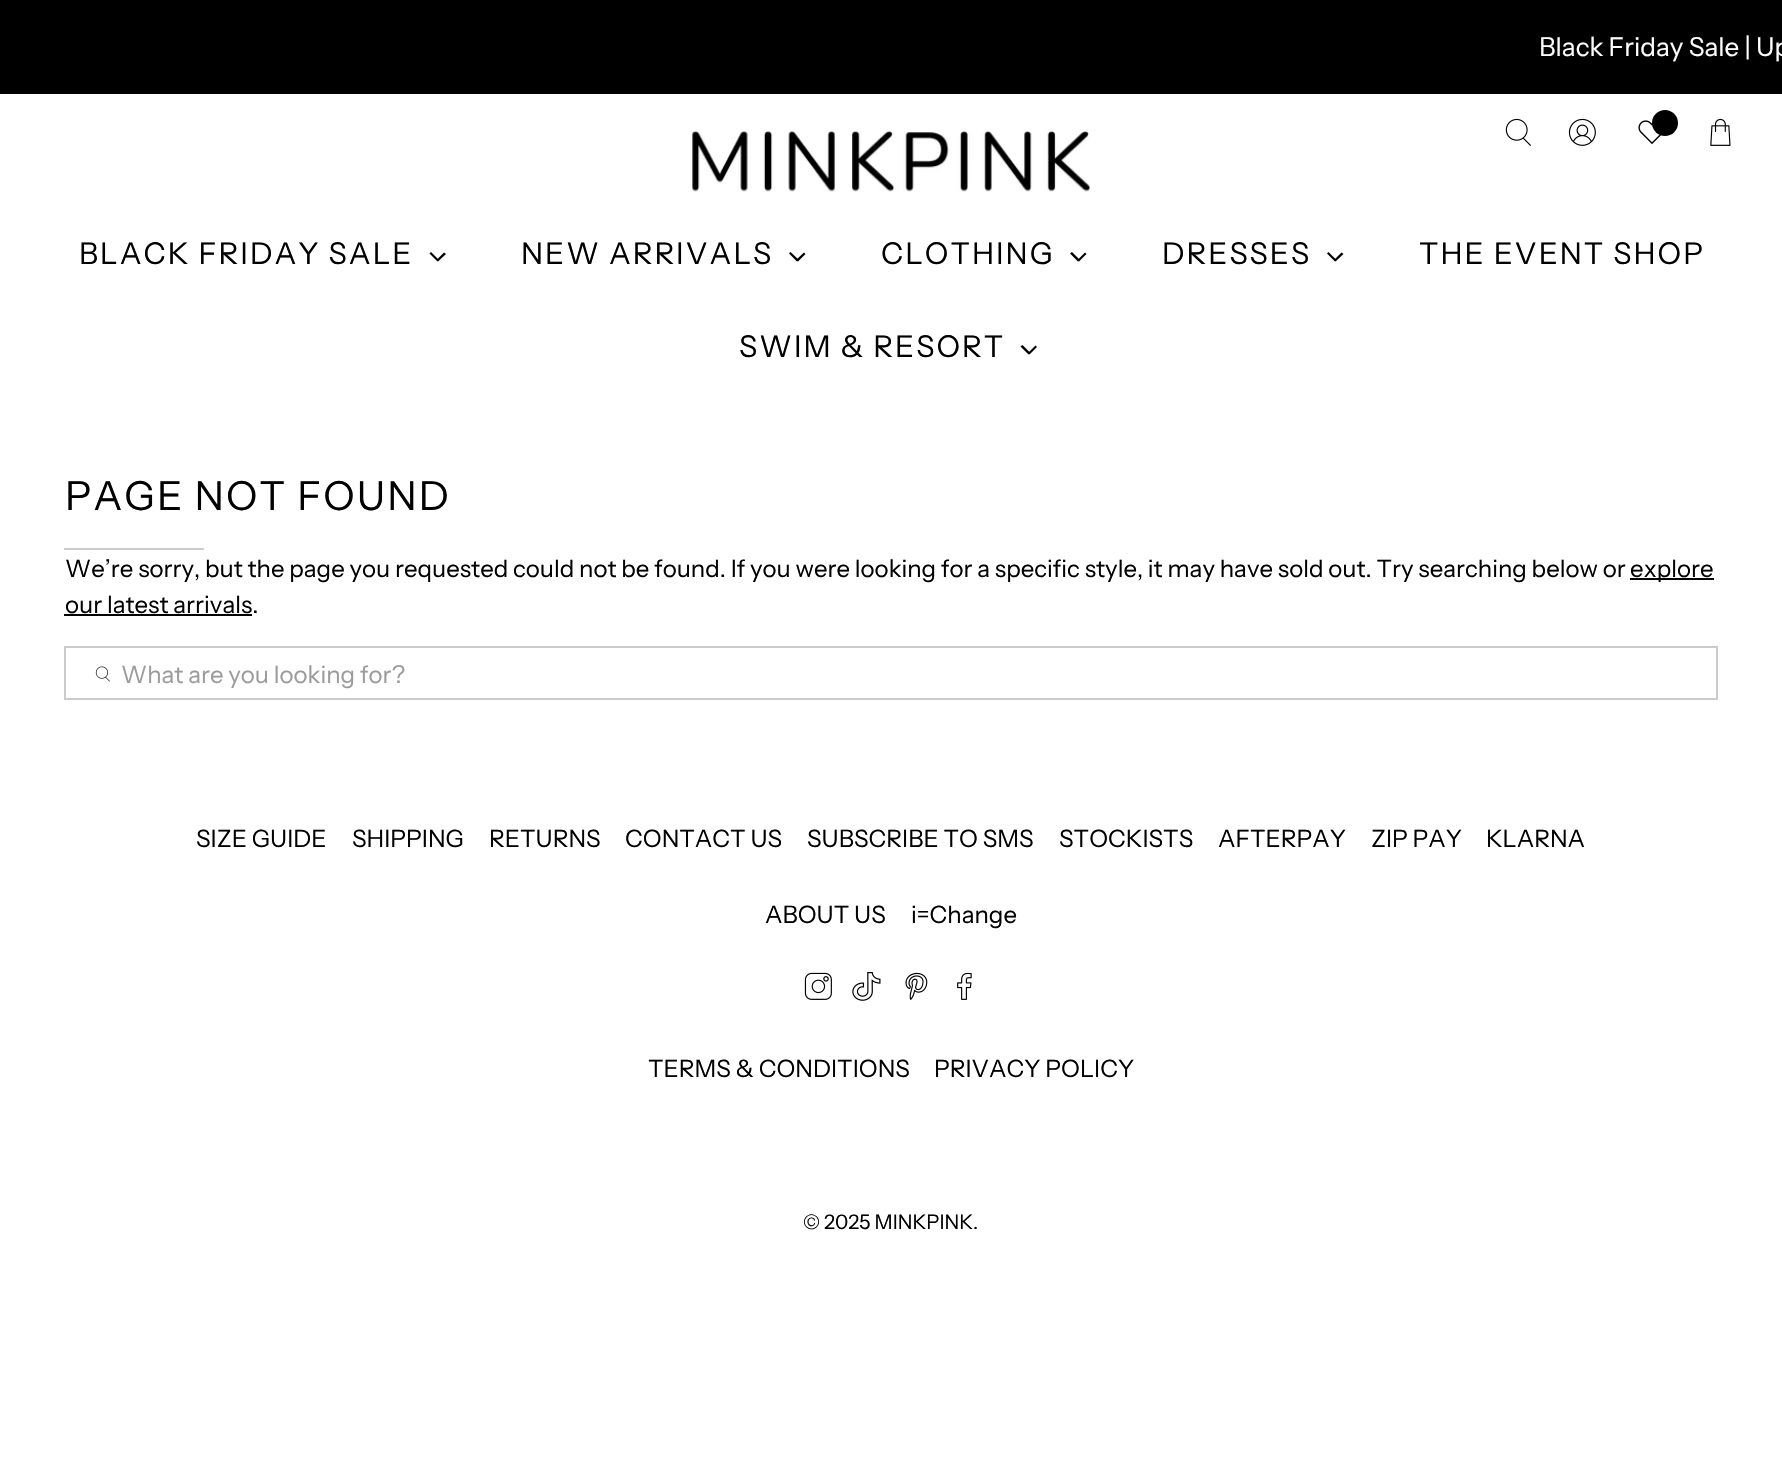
static SkFont makeFont(const char* family, int weight, float size, bool italic = false) {
  SkFontStyle style(weight, SkFontStyle::kNormal_Width,
    italic ? SkFontStyle::kItalic_Slant : SkFontStyle::kUpright_Slant);
  SkFont result(fontMgr->matchFamilyStyle(family, style), size);
  result.setSubpixel(true);
  return result;
}

static void text(SkCanvas* c, const char* s, float x, float y, const SkFont& font, SkColor color) {
  SkPaint ink(SkColor4f::FromColor(color));
  ink.setAntiAlias(true);
  c->drawString(s, x, y, font, ink);
}

static void spacedText(SkCanvas* c, const char* s, float x, float y, const SkFont& font, const SkPaint& ink, float letter, float word) {
  std::vector<SkGlyphID> glyphs(font.countText(s, strlen(s), SkTextEncoding::kUTF8));
  std::vector<float> xs(glyphs.size());
  font.textToGlyphs(s, strlen(s), SkTextEncoding::kUTF8, glyphs);
  font.getXPos(glyphs, xs, x);
  float extra = 0;
  for (size_t i = 0; i < glyphs.size(); i++) {
    xs[i] += extra;
    extra += letter + word * (glyphs[i] == font.unicharToGlyph(' '));
  }
  c->drawTextBlob(SkTextBlob::MakeFromPosHGlyphs(glyphs, xs, y, font), 0, 0, ink);
}

static void box(SkCanvas* c, float l, float t, float r, float b, SkColor color) {
  SkPaint ink(SkColor4f::FromColor(color));
  ink.setAntiAlias(true);
  c->drawRect(SkRect::MakeLTRB(l, t, r, b), ink);
}

static void picture(SkCanvas* c, const char* path, float l, float t, float r, float b) {
  auto image = SkImages::DeferredFromEncodedData(SkData::MakeFromFileName(path));
  c->drawImageRect(image, SkRect::MakeLTRB(l, t, r, b), SkSamplingOptions());
}

void draw(SkCanvas* c) {
  SkPaint paint;
  paint.setAntiAlias(true);
  c->clear(0xffffffff);
  box(c, 0, 0, 1782, 94, 0xff000000);
  SkFont face1 = makeFont("Instrument Sans", 400, 26);
  text(c, "Black Friday Sale | Up", 1539, 56, face1, 0xffffffff);
  picture(c, "img_01.png", 1505, 118, 1531, 146);
  picture(c, "img_02.png", 1568, 118, 1596, 146);
  picture(c, "img_03.png", 1638, 120, 1662, 145);
  paint.setColor(0xff000000);
  c->drawCircle(1665, 123, 13, paint);
  picture(c, "img_04.png", 1710, 118, 1731, 146);
  picture(c, "img_05.png", 690, 130, 1090, 192);
  SkFont face2 = makeFont("Instrument Sans", 400, 30);
  spacedText(c, "BLACK FRIDAY SALE", 79, 264, face2, paint, 2, 0);
  c->drawPath(SkPathBuilder().moveTo(444, 252.5f).lineTo(446, 254).lineTo(438, 261.5f).lineTo(436.5f, 260).close().detach(), paint);
  c->drawPath(SkPathBuilder().moveTo(431, 252).lineTo(439, 260).lineTo(437.5f, 261.5f).lineTo(429.5f, 253.5f).close().detach(), paint);
  spacedText(c, "NEW ARRIVALS", 521, 264, face2, paint, 2, 0);
  c->drawPath(SkPathBuilder().moveTo(804, 252.5f).lineTo(805.5f, 254).lineTo(798, 261.5f).lineTo(796, 260).close().detach(), paint);
  c->drawPath(SkPathBuilder().moveTo(790.5f, 252).lineTo(799, 260).lineTo(797, 261.5f).lineTo(789, 253.5f).close().detach(), paint);
  spacedText(c, "CLOTHING", 881, 264, face2, paint, 2, 0);
  c->drawPath(SkPathBuilder().moveTo(1085, 252.5f).lineTo(1086.5f, 254).lineTo(1079, 261.5f).lineTo(1077.5f, 260).close().detach(), paint);
  c->drawPath(SkPathBuilder().moveTo(1072, 252).lineTo(1080, 260).lineTo(1078, 261.5f).lineTo(1070, 253.5f).close().detach(), paint);
  spacedText(c, "DRESSES", 1162, 264, face2, paint, 2, 0);
  c->drawPath(SkPathBuilder().moveTo(1341.5f, 252.5f).lineTo(1343.5f, 254).lineTo(1335.5f, 261.5f).lineTo(1334, 260).close().detach(), paint);
  c->drawPath(SkPathBuilder().moveTo(1328.5f, 252).lineTo(1336.5f, 260).lineTo(1335, 261.5f).lineTo(1327, 253.5f).close().detach(), paint);
  spacedText(c, "THE EVENT SHOP", 1419, 264, face2, paint, 2, 0);
  spacedText(c, "SWIM & RESORT", 739, 357, face2, paint, 2, 0);
  c->drawPath(SkPathBuilder().moveTo(1035.5f, 345.5f).lineTo(1037, 347).lineTo(1029.5f, 354.5f).lineTo(1028, 353).close().detach(), paint);
  c->drawPath(SkPathBuilder().moveTo(1022.5f, 345).lineTo(1030.5f, 353).lineTo(1028.5f, 354.5f).lineTo(1020.5f, 346.5f).close().detach(), paint);
  SkFont face3 = makeFont("Instrument Sans", 400, 40);
  spacedText(c, "PAGE NOT FOUND", 65, 510, face3, paint, 2, 0);
  box(c, 64, 548, 204, 550, 0xffcccccc);
  SkFont face4 = makeFont("Instrument Sans", 400, 24);
  text(c, "We’re sorry, but the page you requested could not be found. If you were looking for a specific style, it may have sold out. Try searching below or", 65, 577, face4, 0xff000000);
  box(c, 1630, 578, 1714, 580, 0xff000000);
  text(c, "explore", 1630, 577, face4, 0xff000000);
  text(c, "our latest arrivals.", 65, 613, face4, 0xff000000);
  box(c, 64, 614, 252, 616, 0xff000000);
  paint.setStyle(SkPaint::kStroke_Style);
  paint.setStrokeWidth(2);
  paint.setColor(0xffcccccc);
  c->drawRect(SkRect::MakeLTRB(65, 647, 1717, 699), paint);
  picture(c, "img_06.png", 95, 666, 110, 682);
  text(c, "What are you looking for?", 121, 683, face4, 0xff9b9b9b);
  text(c, "SIZE GUIDE", 196, 847, face4, 0xff000000);
  text(c, "SHIPPING", 352, 847, face4, 0xff000000);
  text(c, "RETURNS", 489, 847, face4, 0xff000000);
  text(c, "CONTACT US", 625, 847, face4, 0xff000000);
  text(c, "SUBSCRIBE TO SMS", 807, 847, face4, 0xff000000);
  text(c, "STOCKISTS", 1059, 847, face4, 0xff000000);
  text(c, "AFTERPAY", 1218, 847, face4, 0xff000000);
  text(c, "ZIP PAY", 1371, 847, face4, 0xff000000);
  text(c, "KLARNA", 1486, 847, face4, 0xff000000);
  text(c, "ABOUT US", 765, 923, face4, 0xff000000);
  text(c, "i=Change", 911, 923, face4, 0xff000000);
  picture(c, "img_07.png", 804, 972, 832, 1000);
  picture(c, "img_08.png", 852, 972, 881, 1001);
  picture(c, "img_09.png", 905, 972, 928, 1000);
  picture(c, "img_10.png", 957, 972, 972, 1000);
  text(c, "TERMS & CONDITIONS", 648, 1077, face4, 0xff000000);
  text(c, "PRIVACY POLICY", 934, 1077, face4, 0xff000000);
  SkFont face5 = makeFont("Instrument Sans", 400, 20);
  text(c, "© 2025 MINKPINK.", 803, 1229, face5, 0xff000000);
}
